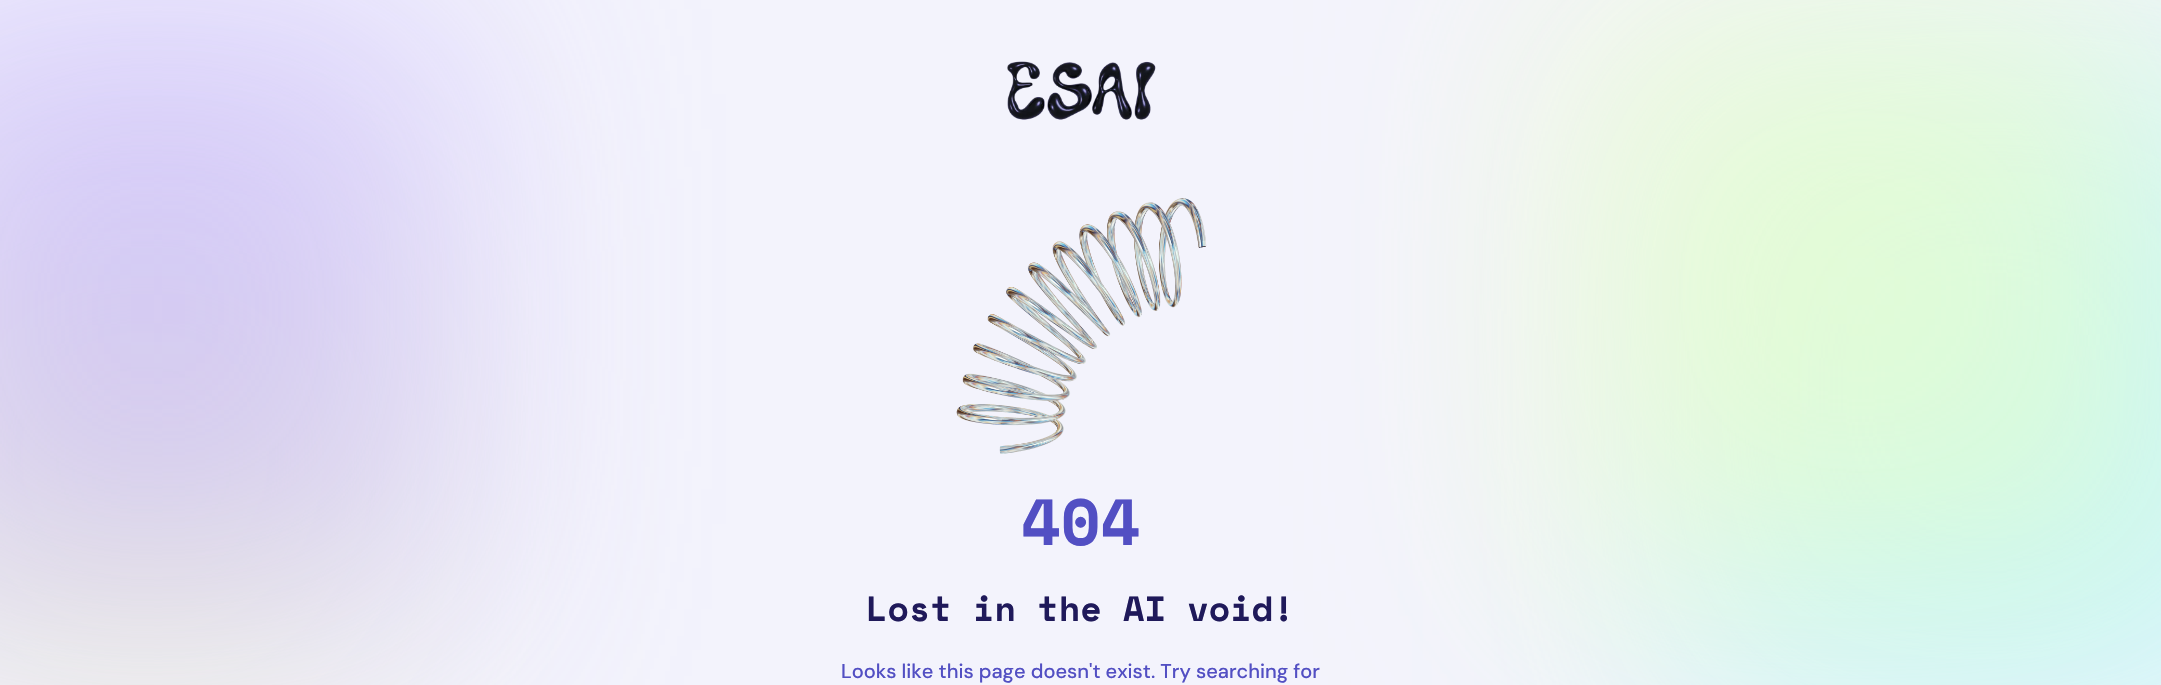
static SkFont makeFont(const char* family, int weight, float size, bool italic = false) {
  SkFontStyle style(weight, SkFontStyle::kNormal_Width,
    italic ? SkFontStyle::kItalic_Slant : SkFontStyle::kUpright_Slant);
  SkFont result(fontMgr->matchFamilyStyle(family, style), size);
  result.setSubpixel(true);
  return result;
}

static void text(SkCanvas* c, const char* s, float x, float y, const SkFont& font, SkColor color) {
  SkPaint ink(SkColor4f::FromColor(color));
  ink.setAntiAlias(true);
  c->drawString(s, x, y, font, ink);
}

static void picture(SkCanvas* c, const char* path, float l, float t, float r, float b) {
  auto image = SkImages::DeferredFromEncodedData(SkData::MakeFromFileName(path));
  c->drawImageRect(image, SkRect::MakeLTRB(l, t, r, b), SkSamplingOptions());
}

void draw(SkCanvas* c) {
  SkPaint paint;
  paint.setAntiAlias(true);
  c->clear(0xfff3f3fc);
  paint.setColor(0x99f6ffbe);
  paint.setMaskFilter(SkMaskFilter::MakeBlur(kNormal_SkBlurStyle, 162.5f));
  c->drawRect(SkRect::MakeLTRB(-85, 225, 375, 685), paint);
  paint.setMaskFilter(nullptr);
  paint.setColor(0x9996f6ff);
  paint.setMaskFilter(SkMaskFilter::MakeBlur(kNormal_SkBlurStyle, 162.5f));
  c->drawRect(SkRect::MakeLTRB(1680, 81, 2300, 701), paint);
  paint.setMaskFilter(nullptr);
  paint.setColor(0x99f6ffbe);
  paint.setMaskFilter(SkMaskFilter::MakeBlur(kNormal_SkBlurStyle, 162.5f));
  c->drawRect(SkRect::MakeLTRB(1561, -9, 2161, 591), paint);
  paint.setMaskFilter(nullptr);
  paint.setColor(0x99bfaefe);
  paint.setMaskFilter(SkMaskFilter::MakeBlur(kNormal_SkBlurStyle, 162.5f));
  c->drawRect(SkRect::MakeLTRB(-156, 9, 444, 609), paint);
  paint.setMaskFilter(nullptr);
  picture(c, "img_01.png", 1007, 61, 1156, 120);
  picture(c, "img_02.png", 956, 198, 1207, 454);
  SkFont face1 = makeFont("Space Mono", 700, 65);
  text(c, "404", 1021, 545, face1, 0xff524fc3);
  SkFont face2 = makeFont("Space Mono", 700, 35);
  text(c, "Lost in the AI void!", 866, 621, face2, 0xff1f195a);
  SkFont face3 = makeFont("DM Sans", 500, 20);
  text(c, "Looks like this page doesn't exist. Try searching for", 841, 678, face3, 0xff524fc3);
}
